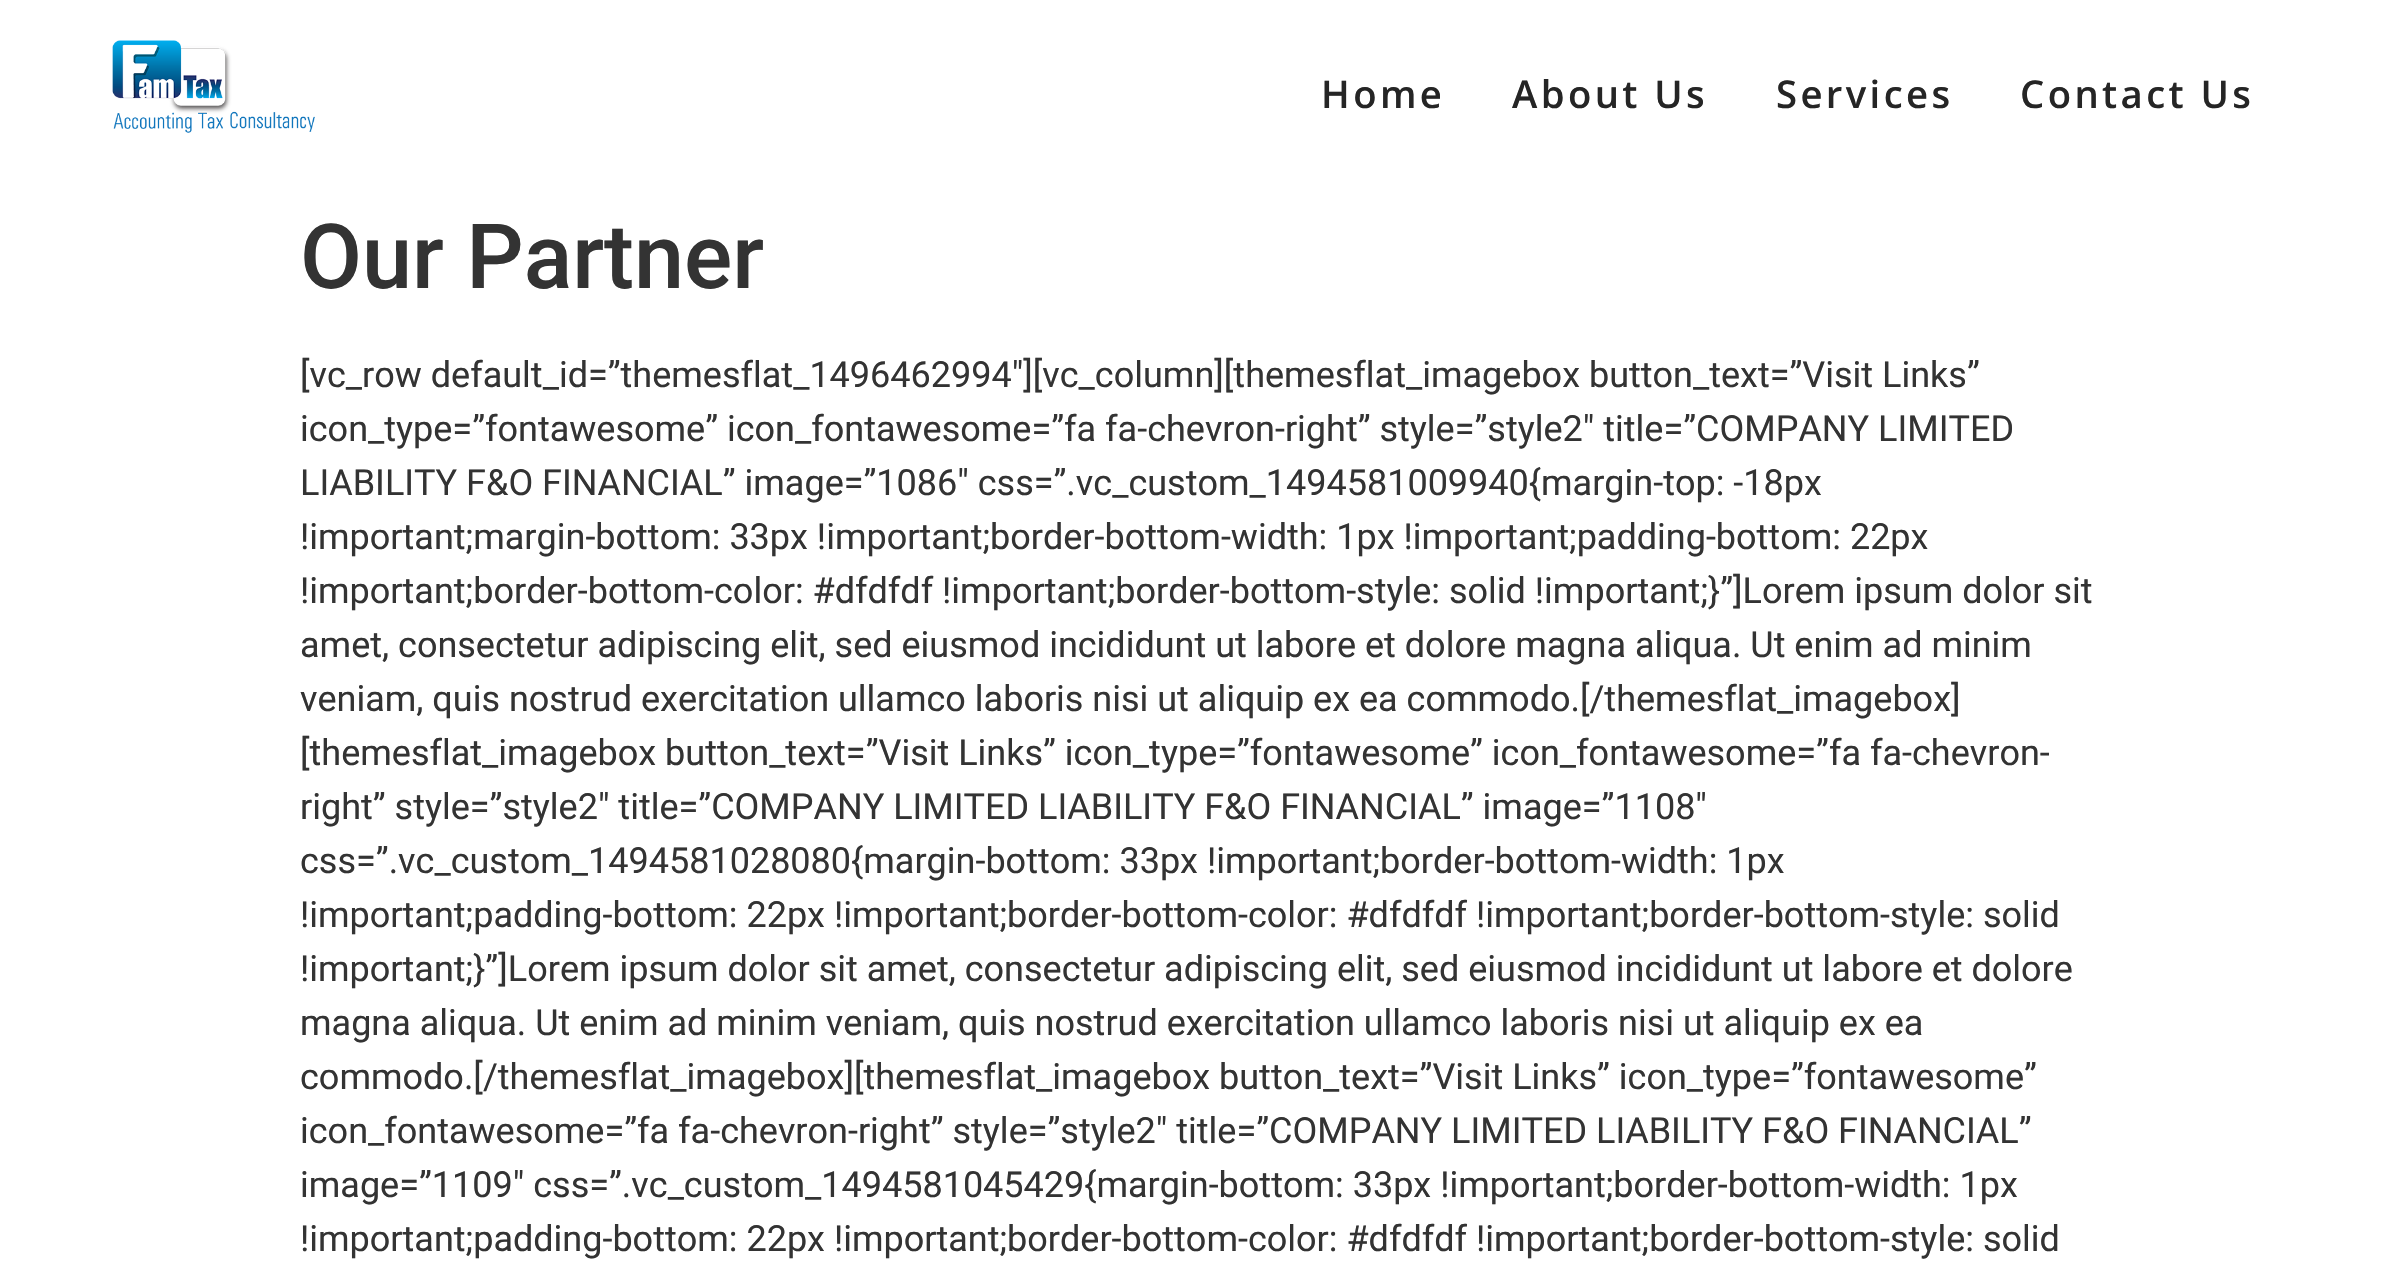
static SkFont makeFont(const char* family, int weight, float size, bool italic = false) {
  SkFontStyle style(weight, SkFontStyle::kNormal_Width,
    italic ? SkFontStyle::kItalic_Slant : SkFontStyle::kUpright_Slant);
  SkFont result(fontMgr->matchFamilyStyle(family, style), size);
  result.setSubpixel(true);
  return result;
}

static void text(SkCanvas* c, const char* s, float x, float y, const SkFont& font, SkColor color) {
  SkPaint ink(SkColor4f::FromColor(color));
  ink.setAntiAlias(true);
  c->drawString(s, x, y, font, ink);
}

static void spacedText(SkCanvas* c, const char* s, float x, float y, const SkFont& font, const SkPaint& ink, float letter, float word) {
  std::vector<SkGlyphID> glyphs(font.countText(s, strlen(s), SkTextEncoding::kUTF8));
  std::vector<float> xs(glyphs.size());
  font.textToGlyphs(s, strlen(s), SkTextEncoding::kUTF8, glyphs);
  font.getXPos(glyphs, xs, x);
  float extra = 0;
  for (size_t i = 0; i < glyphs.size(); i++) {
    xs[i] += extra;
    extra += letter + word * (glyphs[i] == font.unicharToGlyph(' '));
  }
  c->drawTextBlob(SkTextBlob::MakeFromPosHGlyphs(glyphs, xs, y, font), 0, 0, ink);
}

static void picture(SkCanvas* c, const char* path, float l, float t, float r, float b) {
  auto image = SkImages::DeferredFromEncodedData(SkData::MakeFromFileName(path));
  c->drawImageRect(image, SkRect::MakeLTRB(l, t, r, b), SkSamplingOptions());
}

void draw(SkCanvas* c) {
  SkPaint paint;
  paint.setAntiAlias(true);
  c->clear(0xffffffff);
  picture(c, "img_01.png", 112, 40, 315, 133);
  SkFont face1 = makeFont("Open Sans", 600, 38.25f);
  paint.setColor(0xff252525);
  spacedText(c, "Home", 1321, 108, face1, paint, 3.4f, 0);
  spacedText(c, "About Us", 1512, 108, face1, paint, 3.4f, 0);
  spacedText(c, "Services", 1776, 108, face1, paint, 3.4f, 0);
  spacedText(c, "Contact Us", 2020, 108, face1, paint, 3.4f, 0);
  SkFont face2 = makeFont("Roboto", 500, 90);
  text(c, "Our Partner", 300, 288, face2, 0xff333333);
  SkFont face3 = makeFont("Roboto", 400, 36);
  text(c, "[vc_row default_id=”themesflat_1496462994″][vc_column][themesflat_imagebox button_text=”Visit Links”", 300, 387, face3, 0xff333333);
  text(c, "icon_type=”fontawesome” icon_fontawesome=”fa fa-chevron-right” style=”style2″ title=”COMPANY LIMITED", 300, 441, face3, 0xff333333);
  text(c, "LIABILITY F&O FINANCIAL” image=”1086″ css=”.vc_custom_1494581009940{margin-top: -18px", 300, 495, face3, 0xff333333);
  text(c, "!important;margin-bottom: 33px !important;border-bottom-width: 1px !important;padding-bottom: 22px", 300, 549, face3, 0xff333333);
  text(c, "!important;border-bottom-color: #dfdfdf !important;border-bottom-style: solid !important;}”]Lorem ipsum dolor sit", 300, 603, face3, 0xff333333);
  text(c, "amet, consectetur adipiscing elit, sed eiusmod incididunt ut labore et dolore magna aliqua. Ut enim ad minim", 300, 657, face3, 0xff333333);
  text(c, "veniam, quis nostrud exercitation ullamco laboris nisi ut aliquip ex ea commodo.[/themesflat_imagebox]", 300, 711, face3, 0xff333333);
  text(c, "[themesflat_imagebox button_text=”Visit Links” icon_type=”fontawesome” icon_fontawesome=”fa fa-chevron-", 300, 765, face3, 0xff333333);
  text(c, "right” style=”style2″ title=”COMPANY LIMITED LIABILITY F&O FINANCIAL” image=”1108″", 300, 819, face3, 0xff333333);
  text(c, "css=”.vc_custom_1494581028080{margin-bottom: 33px !important;border-bottom-width: 1px", 300, 873, face3, 0xff333333);
  text(c, "!important;padding-bottom: 22px !important;border-bottom-color: #dfdfdf !important;border-bottom-style: solid", 300, 927, face3, 0xff333333);
  text(c, "!important;}”]Lorem ipsum dolor sit amet, consectetur adipiscing elit, sed eiusmod incididunt ut labore et dolore", 300, 981, face3, 0xff333333);
  text(c, "magna aliqua. Ut enim ad minim veniam, quis nostrud exercitation ullamco laboris nisi ut aliquip ex ea", 300, 1035, face3, 0xff333333);
  text(c, "commodo.[/themesflat_imagebox][themesflat_imagebox button_text=”Visit Links” icon_type=”fontawesome”", 300, 1089, face3, 0xff333333);
  text(c, "icon_fontawesome=”fa fa-chevron-right” style=”style2″ title=”COMPANY LIMITED LIABILITY F&O FINANCIAL”", 300, 1143, face3, 0xff333333);
  text(c, "image=”1109″ css=”.vc_custom_1494581045429{margin-bottom: 33px !important;border-bottom-width: 1px", 300, 1197, face3, 0xff333333);
  text(c, "!important;padding-bottom: 22px !important;border-bottom-color: #dfdfdf !important;border-bottom-style: solid", 300, 1251, face3, 0xff333333);
}
